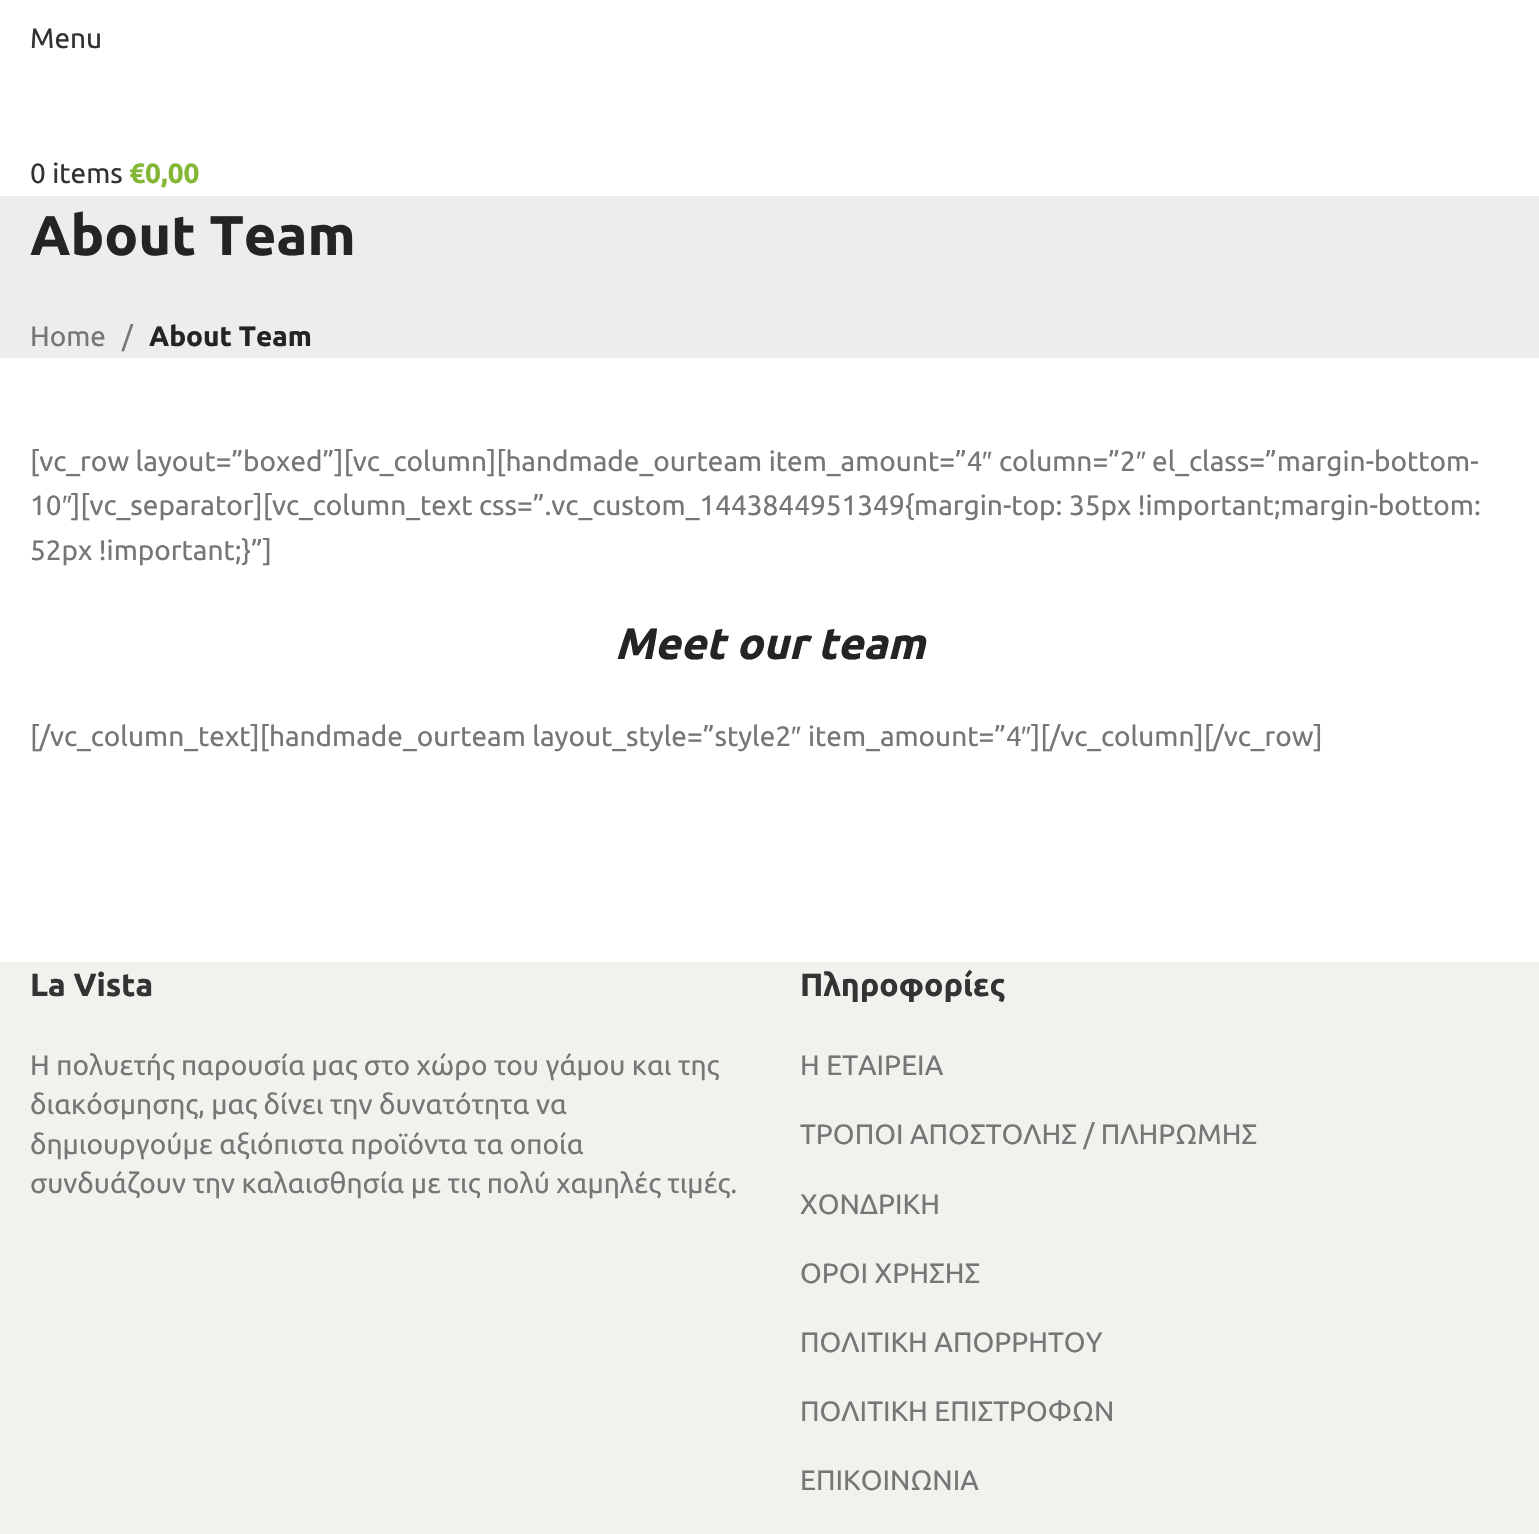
static SkFont makeFont(const char* family, int weight, float size, bool italic = false) {
  SkFontStyle style(weight, SkFontStyle::kNormal_Width,
    italic ? SkFontStyle::kItalic_Slant : SkFontStyle::kUpright_Slant);
  SkFont result(fontMgr->matchFamilyStyle(family, style), size);
  result.setSubpixel(true);
  return result;
}

static void text(SkCanvas* c, const char* s, float x, float y, const SkFont& font, SkColor color) {
  SkPaint ink(SkColor4f::FromColor(color));
  ink.setAntiAlias(true);
  c->drawString(s, x, y, font, ink);
}

static void box(SkCanvas* c, float l, float t, float r, float b, SkColor color) {
  SkPaint ink(SkColor4f::FromColor(color));
  ink.setAntiAlias(true);
  c->drawRect(SkRect::MakeLTRB(l, t, r, b), ink);
}

void draw(SkCanvas* c) {
  SkPaint paint;
  paint.setAntiAlias(true);
  c->clear(0xffffffff);
  SkFont face1 = makeFont("Ubuntu", 400, 28);
  text(c, "Menu", 30, 48, face1, 0xff333333);
  text(c, "0 items", 30, 183, face1, 0xff333333);
  SkFont face2 = makeFont("Ubuntu", 700, 28);
  text(c, "€0,00", 129, 183, face2, 0xff83b735);
  box(c, 0, 196, 1539, 358, 0xffededed);
  SkFont face3 = makeFont("Ubuntu", 700, 56);
  text(c, "About Team", 30, 255, face3, 0xff242424);
  text(c, "Home", 30, 346, face1, 0xff767676);
  text(c, "/", 122, 346, face1, 0xff767676);
  text(c, "About Team", 149, 346, face2, 0xff242424);
  text(c, "[vc_row layout=”boxed”][vc_column][handmade_ourteam item_amount=”4", 30, 471, face1, 0xff767676);
  SkFont face4 = makeFont("Liberation Sans", 400, 28);
  text(c, "″", 982, 471, face4, 0xff767676);
  text(c, "column=”2", 999, 471, face1, 0xff767676);
  text(c, "″", 1136, 471, face4, 0xff767676);
  text(c, "el_class=”margin-bottom-", 1152, 471, face1, 0xff767676);
  text(c, "10", 30, 515, face1, 0xff767676);
  text(c, "″", 62, 515, face4, 0xff767676);
  text(c, "][vc_separator][vc_column_text css=”.vc_custom_1443844951349{margin-top: 35px !important;margin-bottom:", 71, 515, face1, 0xff767676);
  text(c, "52px !important;}”]", 30, 560, face1, 0xff767676);
  SkFont face5 = makeFont("Ubuntu", 700, 44, true);
  text(c, "Meet our team", 615, 659, face5, 0xff242424);
  text(c, "[/vc_column_text][handmade_ourteam layout_style=”style2", 30, 746, face1, 0xff767676);
  text(c, "″", 791, 746, face4, 0xff767676);
  text(c, "item_amount=”4", 808, 746, face1, 0xff767676);
  text(c, "″", 1021, 746, face4, 0xff767676);
  text(c, "][/vc_column][/vc_row]", 1031, 746, face1, 0xff767676);
  box(c, 0, 962, 1539, 1534, 0xfff1f2ed);
  SkFont face6 = makeFont("Ubuntu", 700, 32);
  text(c, "La Vista", 30, 996, face6, 0xff333333);
  text(c, "Η πολυετής παρουσία μας στο χώρο του γάμου και της", 30, 1075, face1, 0xff767676);
  text(c, "διακόσμησης, μας δίνει την δυνατότητα να", 30, 1114, face1, 0xff767676);
  text(c, "δημιουργούμε αξιόπιστα προϊόντα τα οποία", 30, 1154, face1, 0xff767676);
  text(c, "συνδυάζουν την καλαισθησία με τις πολύ χαμηλές τιμές.", 30, 1193, face1, 0xff767676);
  text(c, "Πληροφορίες", 800, 996, face6, 0xff333333);
  text(c, "Η ΕΤΑΙΡΕΙΑ", 800, 1075, face1, 0xff767676);
  text(c, "ΤΡΟΠΟΙ ΑΠΟΣΤΟΛΗΣ / ΠΛΗΡΩΜΗΣ", 800, 1144, face1, 0xff767676);
  text(c, "ΧΟΝΔΡΙΚΗ", 800, 1214, face1, 0xff767676);
  text(c, "ΟΡΟΙ ΧΡΗΣΗΣ", 800, 1283, face1, 0xff767676);
  text(c, "ΠΟΛΙΤΙΚΗ ΑΠΟΡΡΗΤΟΥ", 800, 1352, face1, 0xff767676);
  text(c, "ΠΟΛΙΤΙΚΗ ΕΠΙΣΤΡΟΦΩΝ", 800, 1421, face1, 0xff767676);
  text(c, "ΕΠΙΚΟΙΝΩΝΙΑ", 800, 1490, face1, 0xff767676);
}
